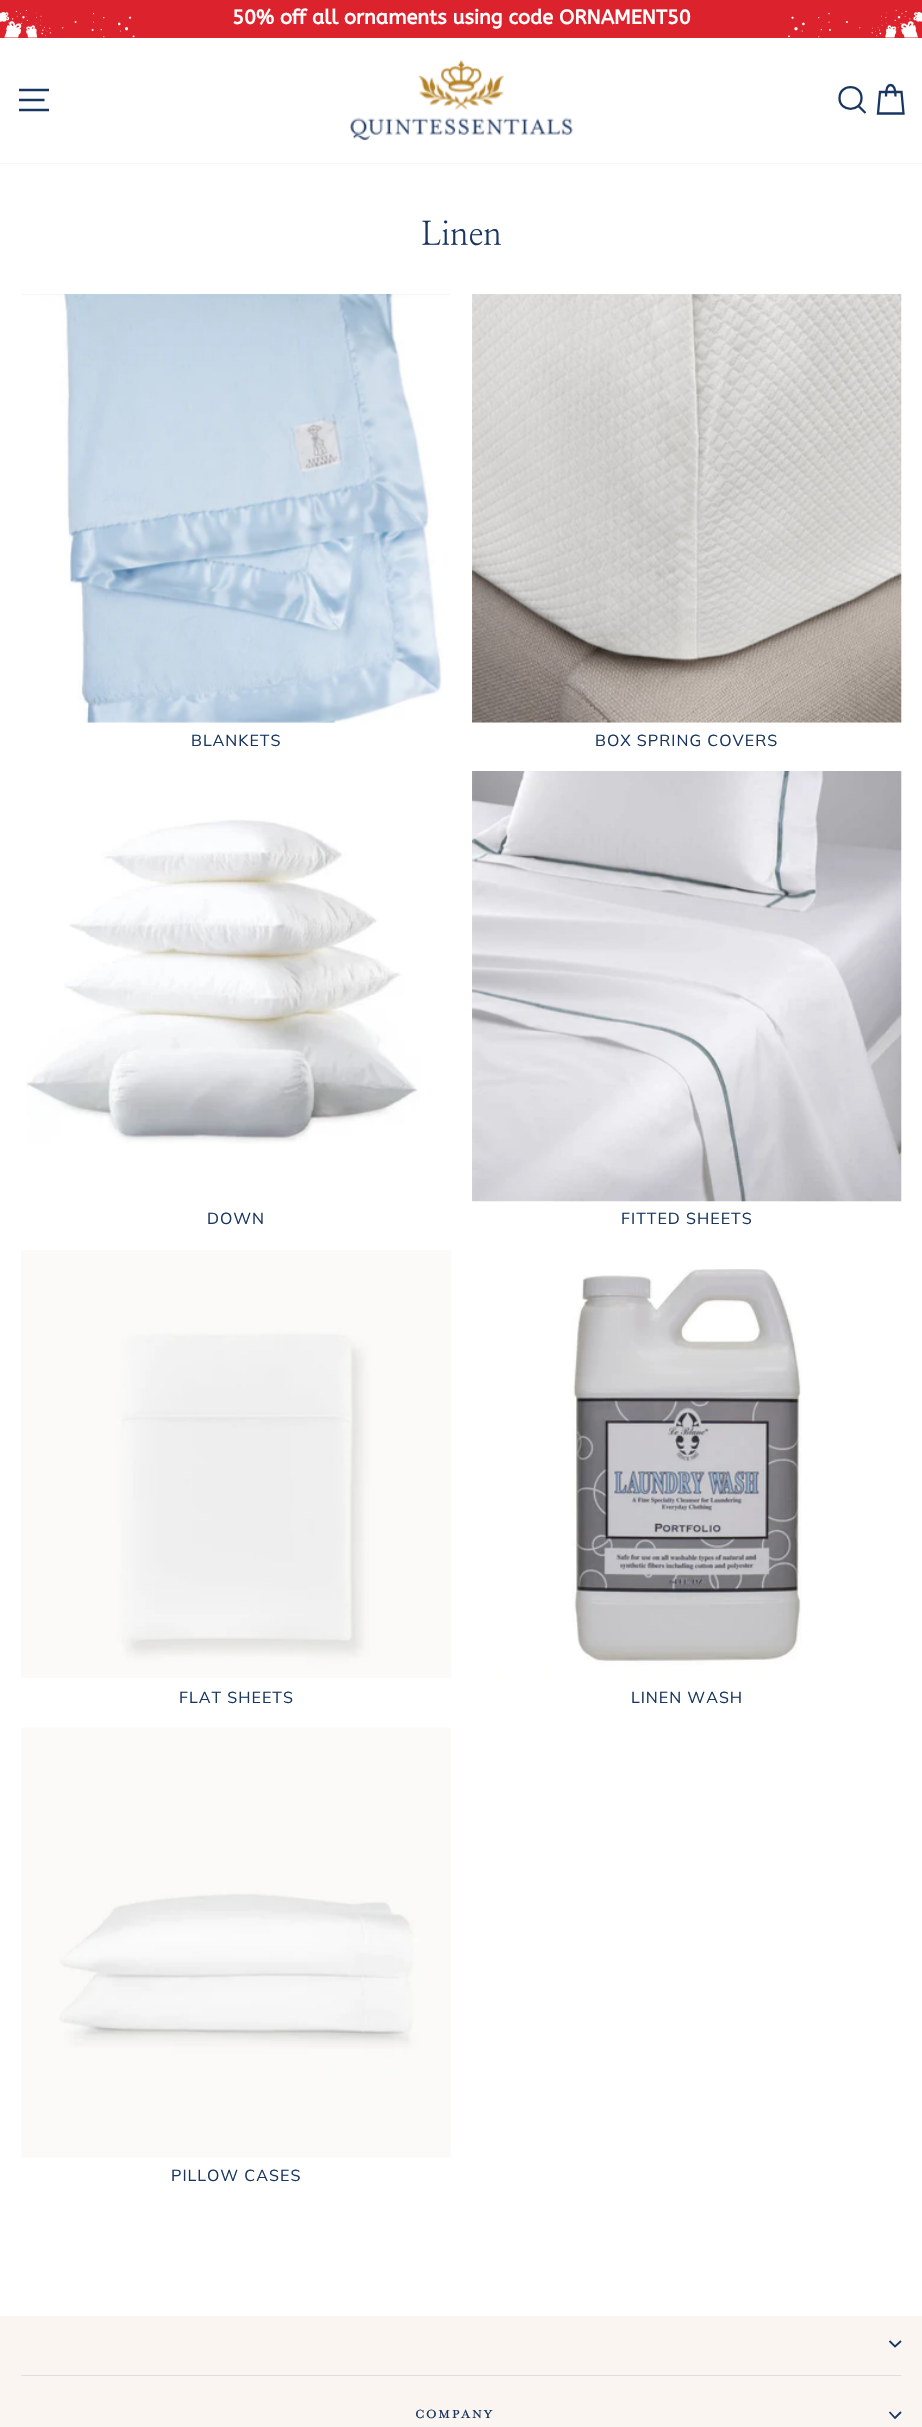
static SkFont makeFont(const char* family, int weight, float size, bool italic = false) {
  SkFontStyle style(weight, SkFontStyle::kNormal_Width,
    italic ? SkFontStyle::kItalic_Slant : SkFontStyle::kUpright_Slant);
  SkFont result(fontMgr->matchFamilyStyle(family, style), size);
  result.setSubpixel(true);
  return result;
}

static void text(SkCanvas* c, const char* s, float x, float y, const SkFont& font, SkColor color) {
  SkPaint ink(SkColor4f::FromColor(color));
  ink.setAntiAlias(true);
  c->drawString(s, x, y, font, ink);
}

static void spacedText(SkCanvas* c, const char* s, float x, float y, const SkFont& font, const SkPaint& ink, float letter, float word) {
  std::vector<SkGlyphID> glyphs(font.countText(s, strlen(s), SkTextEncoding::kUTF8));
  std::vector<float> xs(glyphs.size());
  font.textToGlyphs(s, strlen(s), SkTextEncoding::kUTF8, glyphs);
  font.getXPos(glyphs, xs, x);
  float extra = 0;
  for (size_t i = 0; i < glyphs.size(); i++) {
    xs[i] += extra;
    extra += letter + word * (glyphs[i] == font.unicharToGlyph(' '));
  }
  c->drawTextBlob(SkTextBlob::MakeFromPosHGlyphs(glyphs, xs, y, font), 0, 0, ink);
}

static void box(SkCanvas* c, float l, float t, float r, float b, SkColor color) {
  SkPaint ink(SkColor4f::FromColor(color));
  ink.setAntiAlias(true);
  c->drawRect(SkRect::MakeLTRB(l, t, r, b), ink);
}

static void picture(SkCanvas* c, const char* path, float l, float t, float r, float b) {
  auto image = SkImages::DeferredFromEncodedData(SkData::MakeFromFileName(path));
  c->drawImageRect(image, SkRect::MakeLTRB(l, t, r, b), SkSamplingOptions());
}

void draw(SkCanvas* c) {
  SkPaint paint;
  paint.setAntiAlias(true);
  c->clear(0xffffffff);
  paint.setColor(0x33000000);
  paint.setMaskFilter(SkMaskFilter::MakeBlur(kNormal_SkBlurStyle, 0.5f));
  c->drawRect(SkRect::MakeLTRB(0, 38, 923, 163), paint);
  paint.setMaskFilter(nullptr);
  box(c, 0, 0, 922, 38, 0xffdc222c);
  picture(c, "img_01.png", 0, 9, 922, 38);
  SkFont face1 = makeFont("ABeeZee", 700, 20);
  text(c, "50% off all ornaments using code ORNAMENT50", 232, 24, face1, 0xffffffff);
  box(c, 0, 38, 922, 163, 0xffffffff);
  paint.setStyle(SkPaint::kStroke_Style);
  paint.setStrokeWidth(2.3f);
  paint.setColor(0xff193660);
  c->drawPath(SkPathBuilder().moveTo(19, 90).lineTo(49, 90).moveTo(19, 100).lineTo(44.5f, 100).moveTo(19, 110).lineTo(49, 110).detach(), paint);
  picture(c, "img_02.png", 350, 59, 573, 141);
  c->drawPath(SkPathBuilder().moveTo(861.5f, 98).cubicTo(861.5f, 112.5f, 839.5f, 112.5f, 839.5f, 98).cubicTo(839.5f, 83.5f, 861.5f, 83.5f, 861.5f, 98).close().moveTo(865.5f, 113).lineTo(858.5f, 106).moveTo(886, 96.5f).cubicTo(886, 87, 888, 85, 890.5f, 85).cubicTo(893, 85, 895.5f, 87, 895.5f, 96.5f).detach(), paint);
  c->drawPath(SkPathBuilder().moveTo(880, 92).lineTo(901.5f, 92).lineTo(903.5f, 113.5f).lineTo(878, 113.5f).close().detach(), paint);
  SkFont face2 = makeFont("NanumMyeongjo", 400, 33);
  text(c, "Linen", 421, 245, face2, 0xff193660);
  picture(c, "img_03.png", 21, 294, 451, 723);
  SkFont face3 = makeFont("Mulish", 200, 16);
  paint.setStyle(SkPaint::kFill_Style);
  spacedText(c, "BLANKETS", 191, 746, face3, paint, 1, 0);
  picture(c, "img_04.png", 472, 294, 902, 723);
  spacedText(c, "BOX SPRING COVERS", 595, 746, face3, paint, 1, 0);
  picture(c, "img_05.png", 26, 819, 420, 1144);
  spacedText(c, "DOWN", 207, 1224, face3, paint, 1, 0);
  picture(c, "img_06.png", 472, 771, 902, 1202);
  spacedText(c, "FITTED SHEETS", 621, 1224, face3, paint, 1, 0);
  picture(c, "img_07.png", 21, 1250, 452, 1678);
  spacedText(c, "FLAT SHEETS", 179, 1703, face3, paint, 1, 0);
  picture(c, "img_08.png", 492, 1269, 802, 1679);
  spacedText(c, "LINEN WASH", 631, 1703, face3, paint, 1, 0);
  picture(c, "img_09.png", 21, 1727, 451, 2158);
  spacedText(c, "PILLOW CASES", 171, 2181, face3, paint, 1, 0);
  box(c, 0, 2316, 922, 2427, 0xfffaf5f1);
  paint.setStyle(SkPaint::kStroke_Style);
  paint.setStrokeWidth(1.8f);
  c->drawPath(SkPathBuilder().moveTo(889.5f, 2341).lineTo(895, 2346.5f).lineTo(901, 2341).detach(), paint);
  box(c, 21, 2375, 901, 2376, 0xffdfdee0);
  SkFont face4 = makeFont("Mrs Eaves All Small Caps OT", 400, 18.75f);
  paint.setStyle(SkPaint::kFill_Style);
  spacedText(c, "Company", 415, 2418, face4, paint, 1, 0);
  paint.setStyle(SkPaint::kStroke_Style);
  c->drawPath(SkPathBuilder().moveTo(889.5f, 2412).lineTo(895, 2418).lineTo(901, 2412).detach(), paint);
}
